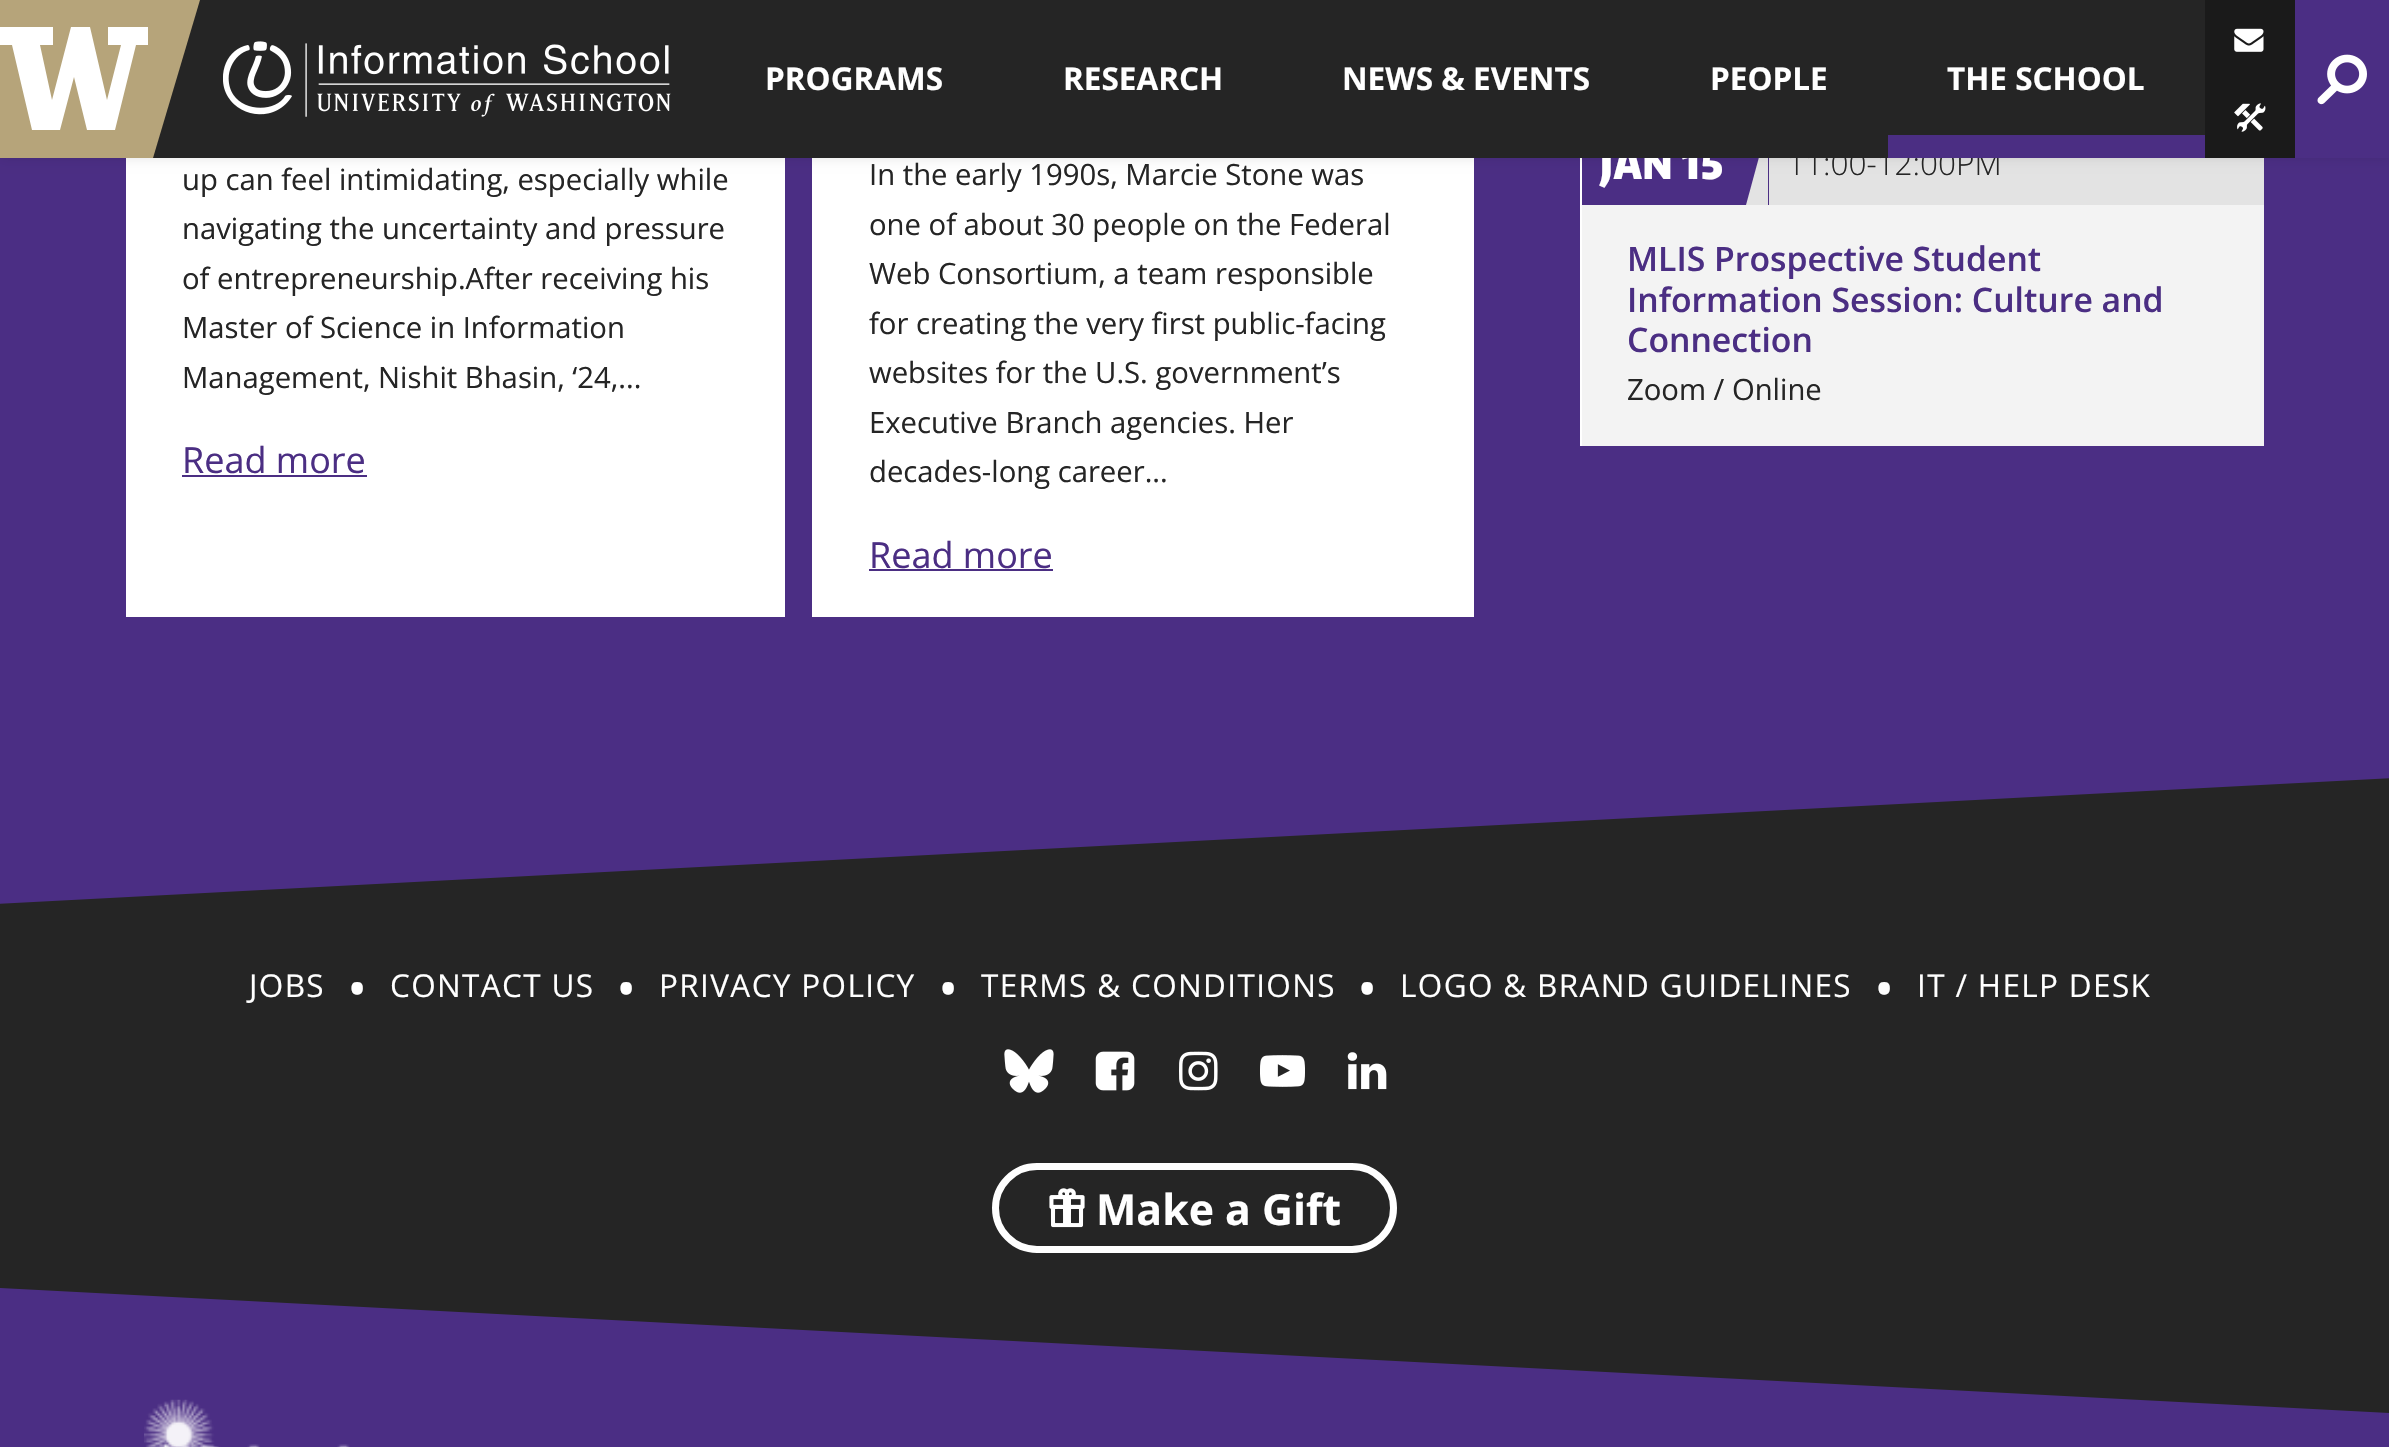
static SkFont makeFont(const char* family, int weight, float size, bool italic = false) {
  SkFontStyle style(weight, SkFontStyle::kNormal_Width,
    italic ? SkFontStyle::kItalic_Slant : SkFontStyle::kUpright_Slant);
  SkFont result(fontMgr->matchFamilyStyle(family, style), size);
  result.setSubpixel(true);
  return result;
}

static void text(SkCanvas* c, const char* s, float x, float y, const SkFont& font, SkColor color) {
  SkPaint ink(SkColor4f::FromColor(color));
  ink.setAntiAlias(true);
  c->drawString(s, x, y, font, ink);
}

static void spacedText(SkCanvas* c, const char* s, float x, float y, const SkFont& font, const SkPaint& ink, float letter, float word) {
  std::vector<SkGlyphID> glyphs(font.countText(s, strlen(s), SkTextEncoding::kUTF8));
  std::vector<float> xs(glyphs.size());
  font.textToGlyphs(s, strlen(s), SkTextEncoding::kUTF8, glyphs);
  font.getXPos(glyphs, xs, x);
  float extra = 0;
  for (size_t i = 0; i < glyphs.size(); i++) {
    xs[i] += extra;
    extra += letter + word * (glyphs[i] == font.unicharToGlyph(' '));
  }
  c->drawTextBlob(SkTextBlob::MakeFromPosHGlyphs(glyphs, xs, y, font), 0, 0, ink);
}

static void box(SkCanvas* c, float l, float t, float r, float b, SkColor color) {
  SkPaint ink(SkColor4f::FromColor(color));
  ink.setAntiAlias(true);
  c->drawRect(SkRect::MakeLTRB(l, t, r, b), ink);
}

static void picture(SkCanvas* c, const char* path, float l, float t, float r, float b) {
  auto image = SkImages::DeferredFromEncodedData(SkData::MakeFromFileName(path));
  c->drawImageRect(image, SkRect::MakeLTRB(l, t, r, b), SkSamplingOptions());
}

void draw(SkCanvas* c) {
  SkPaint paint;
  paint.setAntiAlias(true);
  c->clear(0xffffffff);
  paint.setColor(0xff4b2e84);
  c->drawPath(SkPathBuilder().moveTo(-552, -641).lineTo(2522, -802).lineTo(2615, 955).lineTo(-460, 1116).close().detach(), paint);
  box(c, 126, 158, 785, 617, 0xffffffff);
  box(c, 812, 158, 1474, 617, 0xffffffff);
  box(c, 1580, 158, 1582, 446, 0xffffffff);
  box(c, 1769, 158, 2264, 205, 0xffe3e3e3);
  paint.setColor(0xffe3e3e3);
  c->drawPath(SkPathBuilder().moveTo(1768, 205).lineTo(1746, 205).lineTo(1768, 124).close().detach(), paint);
  paint.setColor(0x1a000000);
  paint.setMaskFilter(SkMaskFilter::MakeBlur(kNormal_SkBlurStyle, 5.5f));
  c->drawRect(SkRect::MakeLTRB(0, 0, 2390, 158), paint);
  paint.setMaskFilter(nullptr);
  SkFont face1 = makeFont("Encode Sans Condensed", 900, 40.5f);
  paint.setColor(0xffffffff);
  spacedText(c, "JAN 15", 1600, 179, face1, paint, 1, 0);
  box(c, 200, 0, 2205, 158, 0xff252525);
  box(c, 0, 0, 200, 158, 0xffb6a47a);
  c->drawPath(SkPathBuilder().moveTo(108, 27).lineTo(108, 45).lineTo(121, 45).lineTo(107, 100).lineTo(90, 27).lineTo(71, 27).lineTo(52, 100).lineTo(40, 45).lineTo(53, 45).lineTo(53, 27).lineTo(0, 27).lineTo(0, 45).lineTo(12, 45).lineTo(32, 130).lineTo(60, 130).lineTo(74, 77).lineTo(87, 130).lineTo(115, 130).lineTo(136, 45).lineTo(148, 45).lineTo(148, 27).close().detach(), paint);
  paint.setColor(0xff252525);
  c->drawPath(SkPathBuilder().moveTo(200, 158).lineTo(153, 158).lineTo(200, 0).close().detach(), paint);
  picture(c, "img_01.png", 223, 41, 671, 117);
  SkFont face2 = makeFont("Open Sans", 700, 31.5f);
  text(c, "PROGRAMS", 765, 90, face2, 0xffffffff);
  text(c, "RESEARCH", 1063, 90, face2, 0xffffffff);
  text(c, "NEWS & EVENTS", 1342, 90, face2, 0xffffffff);
  text(c, "PEOPLE", 1710, 90, face2, 0xffffffff);
  SkFont face3 = makeFont("Open Sans", 300, 31.5f);
  text(c, "11:00-12:00PM", 1787, 175, face3, 0xff252525);
  box(c, 1888, 135, 2205, 158, 0xff4b2e83);
  text(c, "THE SCHOOL", 1947, 90, face2, 0xffffffff);
  box(c, 2205, 0, 2295, 158, 0xff1a1a1a);
  picture(c, "img_02.png", 2234, 28, 2264, 52);
  picture(c, "img_03.png", 2234, 103, 2266, 132);
  box(c, 2295, 0, 2389, 158, 0xff4b2e84);
  picture(c, "img_04.png", 2317, 54, 2367, 105);
  SkFont face4 = makeFont("Open Sans", 400, 29.25f);
  text(c, "up can feel intimidating, especially while", 182, 190, face4, 0xff252525);
  text(c, "navigating the uncertainty and pressure", 182, 239, face4, 0xff252525);
  text(c, "of entrepreneurship.After receiving his", 182, 289, face4, 0xff252525);
  text(c, "Master of Science in Information", 182, 338, face4, 0xff252525);
  text(c, "Management, Nishit Bhasin, ‘24,...", 182, 388, face4, 0xff252525);
  SkFont face5 = makeFont("Open Sans", 400, 36);
  text(c, "Read more", 182, 473, face5, 0xff4b2e83);
  box(c, 182, 475, 367, 477, 0xff4b2e83);
  text(c, "In the early 1990s, Marcie Stone was", 869, 185, face4, 0xff252525);
  text(c, "one of about 30 people on the Federal", 869, 235, face4, 0xff252525);
  text(c, "Web Consortium, a team responsible", 869, 284, face4, 0xff252525);
  text(c, "for creating the very first public-facing", 869, 334, face4, 0xff252525);
  text(c, "websites for the U.S. government’s", 869, 383, face4, 0xff252525);
  text(c, "Executive Branch agencies. Her", 869, 433, face4, 0xff252525);
  text(c, "decades-long career...", 869, 482, face4, 0xff252525);
  text(c, "Read more", 869, 568, face5, 0xff4b2e83);
  box(c, 869, 569, 1053, 571, 0xff4b2e83);
  box(c, 1582, 205, 2264, 446, 0xfff3f3f3);
  SkFont face6 = makeFont("Open Sans", 600, 33.75f);
  text(c, "MLIS Prospective Student", 1627, 271, face6, 0xff4b2e83);
  text(c, "Information Session: Culture and", 1627, 312, face6, 0xff4b2e83);
  text(c, "Connection", 1627, 352, face6, 0xff4b2e83);
  text(c, "Zoom / Online", 1627, 400, face4, 0xff252525);
  c->drawPath(SkPathBuilder().moveTo(-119, 910).lineTo(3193, 736).lineTo(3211, 1080).lineTo(-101, 1253).close().detach(), paint);
  box(c, 0, 1287, 2389, 1447, 0xff4b2e84);
  picture(c, "img_11.png", 144, 1399, 350, 1447);
  c->drawPath(SkPathBuilder().moveTo(-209, 933).lineTo(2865, 1094).lineTo(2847, 1437).lineTo(-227, 1276).close().detach(), paint);
  SkFont face7 = makeFont("Open Sans", 400, 31.5f);
  paint.setColor(0xffffffff);
  spacedText(c, "JOBS", 249, 997, face7, paint, 1.35f, 0);
  SkFont face8 = makeFont("Open Sans", 400, 54);
  spacedText(c, "•", 347, 1008, face8, paint, 1, 0);
  spacedText(c, "CONTACT US", 390, 997, face7, paint, 1.35f, 0);
  spacedText(c, "•", 616, 1008, face8, paint, 1, 0);
  spacedText(c, "PRIVACY POLICY", 659, 997, face7, paint, 1.35f, 0);
  spacedText(c, "•", 938, 1008, face8, paint, 1, 0);
  spacedText(c, "TERMS & CONDITIONS", 981, 997, face7, paint, 1.35f, 0);
  spacedText(c, "•", 1357, 1008, face8, paint, 1, 0);
  spacedText(c, "LOGO & BRAND GUIDELINES", 1400, 997, face7, paint, 1.35f, 0);
  spacedText(c, "•", 1874, 1008, face8, paint, 1, 0);
  spacedText(c, "IT / HELP DESK", 1917, 997, face7, paint, 1.35f, 0);
  picture(c, "img_05.png", 1004, 1049, 1054, 1093);
  picture(c, "img_06.png", 1095, 1051, 1135, 1091);
  picture(c, "img_07.png", 1179, 1051, 1218, 1091);
  picture(c, "img_08.png", 1260, 1055, 1305, 1087);
  picture(c, "img_09.png", 1347, 1052, 1387, 1090);
  paint.setStyle(SkPaint::kStroke_Style);
  paint.setStrokeWidth(7);
  c->drawRoundRect(SkRect::MakeLTRB(995.5f, 1166.5f, 1393.5f, 1249.5f), 41.5f, 41.5f, paint);
  picture(c, "img_10.png", 1049, 1188, 1085, 1228);
  SkFont face9 = makeFont("Open Sans", 700, 42.75f);
  text(c, "Make a Gift", 1096, 1225, face9, 0xffffffff);
}
